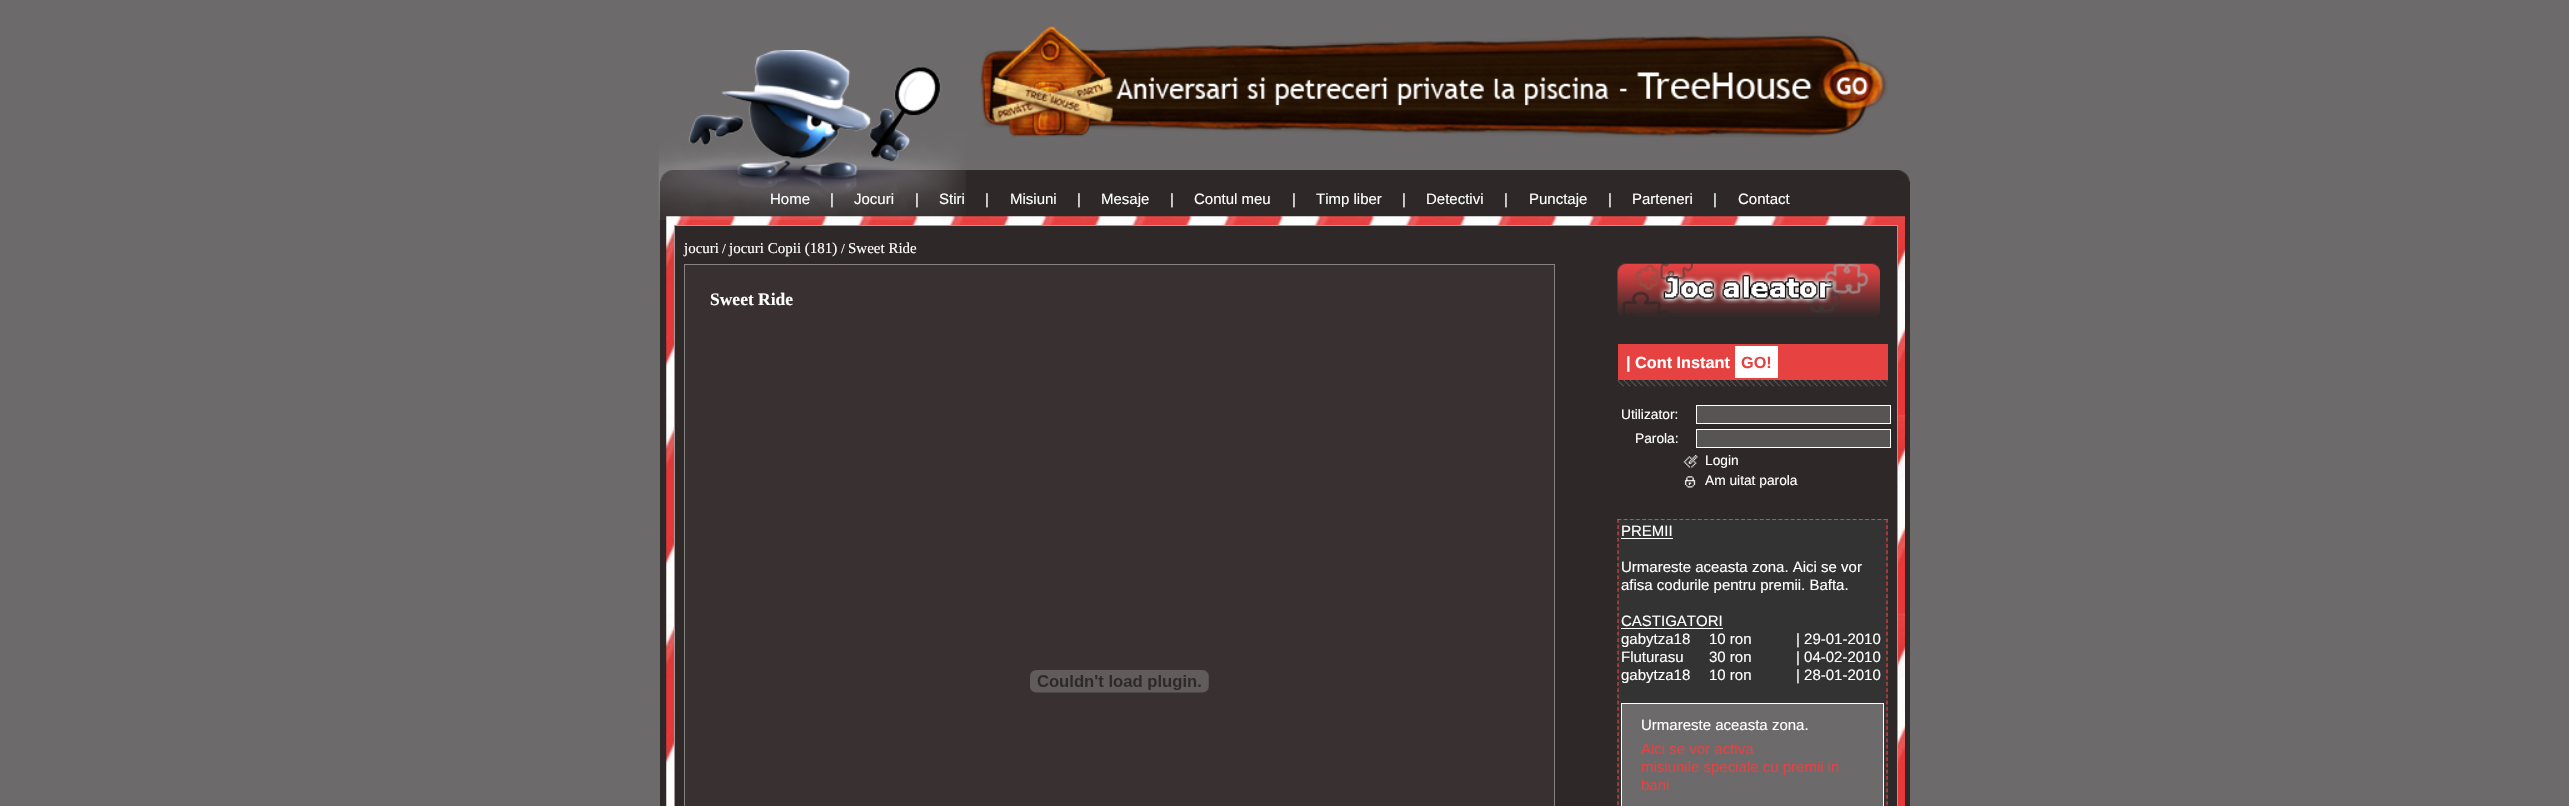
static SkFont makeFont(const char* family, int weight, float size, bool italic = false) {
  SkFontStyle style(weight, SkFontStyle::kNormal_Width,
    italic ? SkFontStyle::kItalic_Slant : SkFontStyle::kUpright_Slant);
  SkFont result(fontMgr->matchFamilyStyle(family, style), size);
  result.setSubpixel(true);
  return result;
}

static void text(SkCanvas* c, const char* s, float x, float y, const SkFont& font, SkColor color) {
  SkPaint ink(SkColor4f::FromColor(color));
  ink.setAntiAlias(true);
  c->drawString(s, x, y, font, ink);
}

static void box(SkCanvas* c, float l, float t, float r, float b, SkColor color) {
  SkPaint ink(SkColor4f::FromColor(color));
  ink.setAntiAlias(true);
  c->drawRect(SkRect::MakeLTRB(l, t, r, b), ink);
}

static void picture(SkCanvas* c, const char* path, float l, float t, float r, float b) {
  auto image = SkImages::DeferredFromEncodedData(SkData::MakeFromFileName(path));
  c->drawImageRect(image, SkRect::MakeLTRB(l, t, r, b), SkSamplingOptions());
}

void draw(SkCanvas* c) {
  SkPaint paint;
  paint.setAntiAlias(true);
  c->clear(0xff6c6a6a);
  picture(c, "img_01.png", 980, 26, 1888, 138);
  box(c, 660, 181, 1910, 806, 0xff2e2828);
  picture(c, "img_02.png", 660, 170, 1910, 182);
  picture(c, "img_04.png", 666, 216, 1905, 806);
  picture(c, "img_03.png", 658, 50, 966, 220);
  SkFont face1 = makeFont("Liberation Sans", 400, 15);
  text(c, "Home", 770, 204, face1, 0xffffffff);
  text(c, "|", 830, 204, face1, 0xffffffff);
  text(c, "Jocuri", 854, 204, face1, 0xffffffff);
  text(c, "|", 915, 204, face1, 0xffffffff);
  text(c, "Stiri", 939, 204, face1, 0xffffffff);
  text(c, "|", 985, 204, face1, 0xffffffff);
  text(c, "Misiuni", 1010, 204, face1, 0xffffffff);
  text(c, "|", 1077, 204, face1, 0xffffffff);
  text(c, "Mesaje", 1101, 204, face1, 0xffffffff);
  text(c, "|", 1170, 204, face1, 0xffffffff);
  text(c, "Contul meu", 1194, 204, face1, 0xffffffff);
  text(c, "|", 1292, 204, face1, 0xffffffff);
  text(c, "Timp liber", 1316, 204, face1, 0xffffffff);
  text(c, "|", 1402, 204, face1, 0xffffffff);
  text(c, "Detectivi", 1426, 204, face1, 0xffffffff);
  text(c, "|", 1504, 204, face1, 0xffffffff);
  text(c, "Punctaje", 1529, 204, face1, 0xffffffff);
  text(c, "|", 1608, 204, face1, 0xffffffff);
  text(c, "Parteneri", 1632, 204, face1, 0xffffffff);
  text(c, "|", 1713, 204, face1, 0xffffffff);
  text(c, "Contact", 1738, 204, face1, 0xffffffff);
  paint.setColor(0xff2e2828);
  c->drawRect(SkRect::MakeLTRB(674.5f, 225.5f, 1897.5f, 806.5f), paint);
  paint.setStyle(SkPaint::kStroke_Style);
  paint.setStrokeWidth(1);
  paint.setColor(0xffa99a9a);
  c->drawRect(SkRect::MakeLTRB(674.5f, 225.5f, 1897.5f, 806.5f), paint);
  SkFont face2 = makeFont("Liberation Serif", 400, 15);
  text(c, "jocuri", 684, 253, face2, 0xffffffff);
  SkFont face3 = makeFont("Liberation Serif", 400, 13.75f);
  text(c, "/", 722, 253, face3, 0xffffffff);
  text(c, "jocuri Copii (181)", 729, 253, face2, 0xffffffff);
  text(c, "/", 841, 253, face3, 0xffffffff);
  text(c, "Sweet Ride", 848, 253, face2, 0xffffffff);
  paint.setStyle(SkPaint::kFill_Style);
  paint.setColor(0xff393131);
  c->drawRect(SkRect::MakeLTRB(684.5f, 264.5f, 1554.5f, 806.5f), paint);
  paint.setStyle(SkPaint::kStroke_Style);
  paint.setColor(0xff868481);
  c->drawRect(SkRect::MakeLTRB(684.5f, 264.5f, 1554.5f, 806.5f), paint);
  SkFont face4 = makeFont("Liberation Serif", 700, 17.5f);
  text(c, "Sweet Ride", 710, 305, face4, 0xffffffff);
  picture(c, "img_05.png", 1030, 670, 1209, 693);
  picture(c, "img_06.png", 1617, 263, 1880, 317);
  box(c, 1618, 344, 1888, 380, 0xffe74242);
  SkFont face5 = makeFont("Liberation Sans", 700, 16.25f);
  text(c, "| Cont Instant", 1626, 368, face5, 0xffffffff);
  box(c, 1735, 346, 1778, 378, 0xffffffff);
  text(c, "GO!", 1741, 368, face5, 0xffe74242);
  picture(c, "img_07.png", 1617, 380, 1888, 387);
  SkFont face6 = makeFont("Liberation Sans", 400, 13.75f);
  text(c, "Utilizator:", 1621, 419, face6, 0xffffffff);
  paint.setStyle(SkPaint::kFill_Style);
  paint.setColor(0xff575454);
  c->drawRect(SkRect::MakeLTRB(1696.5f, 405.5f, 1890.5f, 423.5f), paint);
  paint.setStyle(SkPaint::kStroke_Style);
  paint.setColor(0xffffffff);
  c->drawRect(SkRect::MakeLTRB(1696.5f, 405.5f, 1890.5f, 423.5f), paint);
  text(c, "Parola:", 1635, 443, face6, 0xffffffff);
  paint.setStyle(SkPaint::kFill_Style);
  paint.setColor(0xff575454);
  c->drawRect(SkRect::MakeLTRB(1696.5f, 429.5f, 1890.5f, 447.5f), paint);
  paint.setStyle(SkPaint::kStroke_Style);
  paint.setColor(0xffffffff);
  c->drawRect(SkRect::MakeLTRB(1696.5f, 429.5f, 1890.5f, 447.5f), paint);
  picture(c, "img_08.png", 1683, 455, 1698, 468);
  text(c, "Login", 1705, 465, face6, 0xffffffff);
  picture(c, "img_09.png", 1684, 476, 1696, 488);
  text(c, "Am uitat parola", 1705, 485, face6, 0xffffffff);
  box(c, 1618, 519, 1888, 806, 0xff333333);
  paint.setStrokeWidth(1.2f);
  paint.setColor(0xffe74242);
  paint.setPathEffect(SkDashPathEffect::Make({{3.75f, 2.44f}}, 0));
  c->drawPath(SkPathBuilder().moveTo(1617.5f, 519.5f).lineTo(1887.5f, 519.5f).detach(), paint);
  paint.setPathEffect(nullptr);
  paint.setPathEffect(SkDashPathEffect::Make({{3.75f, 2.52f}}, 0));
  c->drawPath(SkPathBuilder().moveTo(1887, 519).lineTo(1887, 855).detach(), paint);
  paint.setPathEffect(nullptr);
  paint.setPathEffect(SkDashPathEffect::Make({{3.75f, 2.52f}}, 0));
  c->drawPath(SkPathBuilder().moveTo(1618, 519).lineTo(1618, 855).detach(), paint);
  paint.setPathEffect(nullptr);
  text(c, "PREMII", 1621, 536, face1, 0xffffffff);
  box(c, 1621, 538, 1673, 539, 0xffffffff);
  text(c, "Urmareste aceasta zona. Aici se vor", 1621, 572, face1, 0xffffffff);
  text(c, "afisa codurile pentru premii. Bafta.", 1621, 590, face1, 0xffffffff);
  text(c, "CASTIGATORI", 1621, 626, face1, 0xffffffff);
  box(c, 1621, 628, 1723, 629, 0xffffffff);
  text(c, "gabytza18", 1621, 644, face1, 0xffffffff);
  text(c, "10 ron", 1709, 644, face1, 0xffffffff);
  text(c, "| 29-01-2010", 1796, 644, face1, 0xffffffff);
  text(c, "Fluturasu", 1621, 662, face1, 0xffffffff);
  text(c, "30 ron", 1709, 662, face1, 0xffffffff);
  text(c, "| 04-02-2010", 1796, 662, face1, 0xffffffff);
  text(c, "gabytza18", 1621, 680, face1, 0xffffffff);
  text(c, "10 ron", 1709, 680, face1, 0xffffffff);
  text(c, "| 28-01-2010", 1796, 680, face1, 0xffffffff);
  paint.setStyle(SkPaint::kFill_Style);
  paint.setColor(0xff6c6a6a);
  c->drawRect(SkRect::MakeLTRB(1621.5f, 703.5f, 1883.5f, 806.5f), paint);
  paint.setStyle(SkPaint::kStroke_Style);
  paint.setStrokeWidth(1);
  paint.setColor(0xffffffff);
  c->drawRect(SkRect::MakeLTRB(1621.5f, 703.5f, 1883.5f, 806.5f), paint);
  text(c, "Urmareste aceasta zona.", 1641, 730, face1, 0xffffffff);
  text(c, "Aici se vor activa", 1641, 754, face1, 0xffe74242);
  text(c, "misiunile speciale cu premii in", 1641, 772, face1, 0xffe74242);
  text(c, "bani", 1641, 790, face1, 0xffe74242);
}
